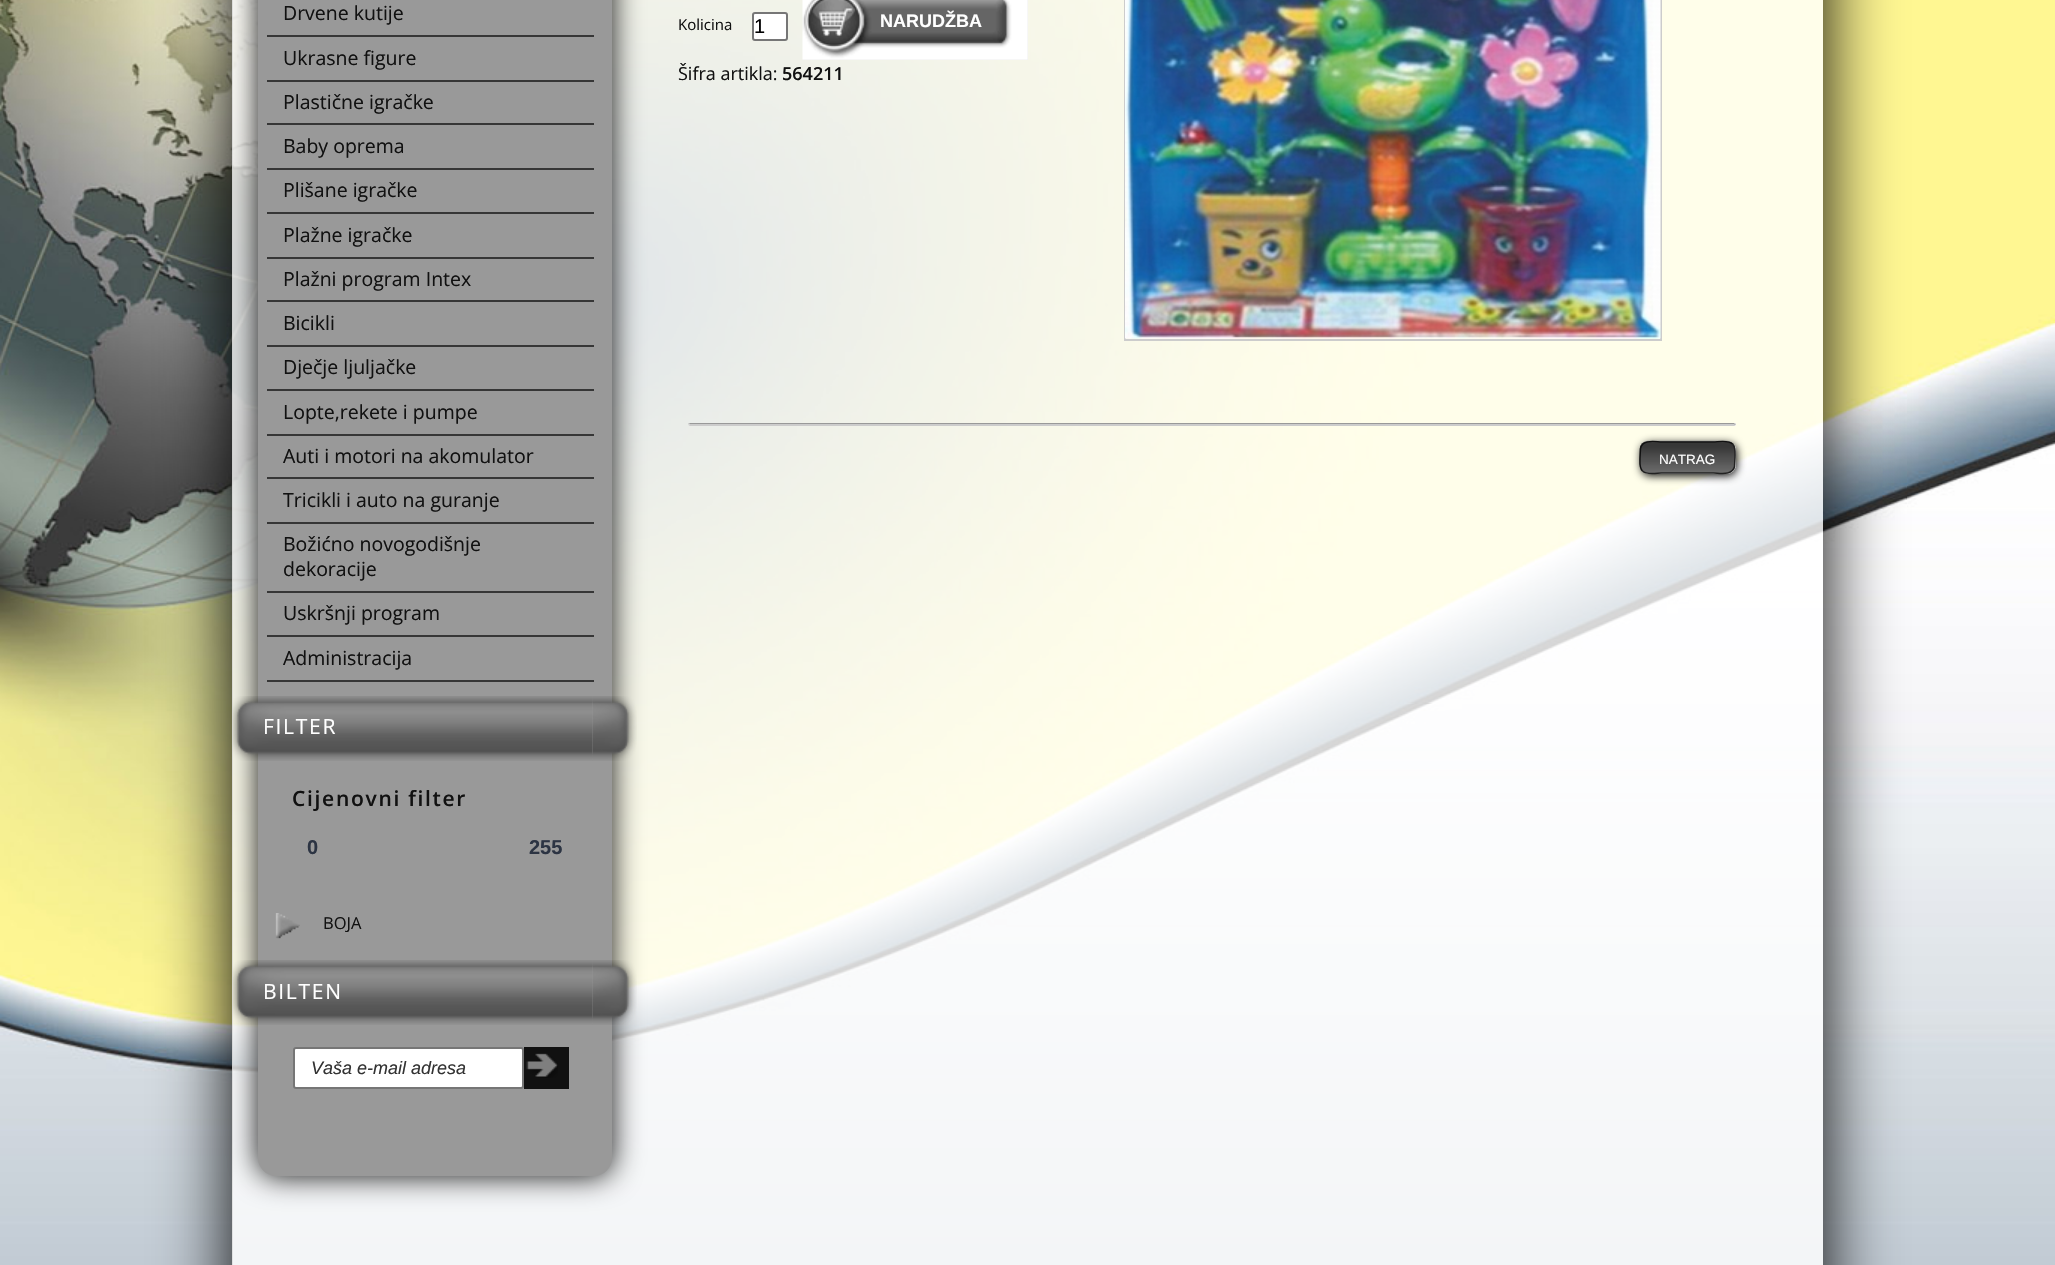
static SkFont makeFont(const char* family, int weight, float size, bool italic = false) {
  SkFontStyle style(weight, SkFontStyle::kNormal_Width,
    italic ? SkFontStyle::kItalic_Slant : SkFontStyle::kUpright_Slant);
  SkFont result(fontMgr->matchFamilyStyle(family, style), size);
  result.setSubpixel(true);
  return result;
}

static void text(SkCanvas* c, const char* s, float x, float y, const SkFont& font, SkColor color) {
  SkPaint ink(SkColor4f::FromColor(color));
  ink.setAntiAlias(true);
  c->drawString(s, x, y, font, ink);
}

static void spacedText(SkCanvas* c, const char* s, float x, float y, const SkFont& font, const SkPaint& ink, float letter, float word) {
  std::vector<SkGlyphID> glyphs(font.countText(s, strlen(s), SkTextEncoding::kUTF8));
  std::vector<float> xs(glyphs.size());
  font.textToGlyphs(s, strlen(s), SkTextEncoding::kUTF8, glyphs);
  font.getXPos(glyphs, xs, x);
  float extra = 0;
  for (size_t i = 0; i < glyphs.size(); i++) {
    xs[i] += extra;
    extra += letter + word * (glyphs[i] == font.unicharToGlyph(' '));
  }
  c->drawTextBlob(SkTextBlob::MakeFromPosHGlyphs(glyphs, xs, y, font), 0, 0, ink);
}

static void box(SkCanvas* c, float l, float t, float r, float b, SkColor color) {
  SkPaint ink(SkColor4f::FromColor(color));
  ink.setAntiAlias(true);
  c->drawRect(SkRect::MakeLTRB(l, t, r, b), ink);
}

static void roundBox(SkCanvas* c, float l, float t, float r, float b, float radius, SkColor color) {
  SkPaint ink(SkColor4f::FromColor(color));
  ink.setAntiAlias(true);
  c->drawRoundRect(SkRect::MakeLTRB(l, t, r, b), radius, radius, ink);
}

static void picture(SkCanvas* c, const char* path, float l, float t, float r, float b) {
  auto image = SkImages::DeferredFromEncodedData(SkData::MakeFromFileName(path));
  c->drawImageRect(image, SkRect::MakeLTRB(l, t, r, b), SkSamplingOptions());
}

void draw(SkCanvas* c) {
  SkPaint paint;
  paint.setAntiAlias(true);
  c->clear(0xffffffff);
  picture(c, "img_01.png", 0, 0, 2055, 1265);
  c->save();
  c->clipPath(SkPathBuilder(SkPathFillType::kEvenOdd).moveTo(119, 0).lineTo(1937, 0).lineTo(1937, 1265).lineTo(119, 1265).close().moveTo(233, -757).lineTo(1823, -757).lineTo(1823, 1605).cubicTo(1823, 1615, 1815, 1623, 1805, 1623).lineTo(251, 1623).cubicTo(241, 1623, 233, 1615, 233, 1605).close().detach(), true);
  paint.setColor(0xff000000);
  paint.setMaskFilter(SkMaskFilter::MakeBlur(kNormal_SkBlurStyle, 37.5f));
  c->drawRoundRect(SkRect::MakeLTRB(233, -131, 1823, 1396), 18, 18, paint);
  paint.setMaskFilter(nullptr);
  c->restore();
  box(c, 232, 0, 1823, 1265, 0xccffffff);
  paint.setColor(0xff111111);
  paint.setMaskFilter(SkMaskFilter::MakeBlur(kNormal_SkBlurStyle, 15));
  c->drawRoundRect(SkRect::MakeLTRB(258, -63, 612, 1176), 18, 18, paint);
  paint.setMaskFilter(nullptr);
  paint.setColor(0xff999999);
  c->drawPath(SkPathBuilder().moveTo(258, -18).lineTo(612, -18).lineTo(612, 1158).cubicTo(612, 1168, 604, 1176, 594, 1176).lineTo(276, 1176).cubicTo(266, 1176, 258, 1168, 258, 1158).close().detach(), paint);
  box(c, 267, 35, 594, 37, 0xff363636);
  SkFont face1 = makeFont("Open Sans", 400, 19.5f);
  text(c, "Drvene kutije", 283, 20, face1, 0xff111111);
  box(c, 267, 80, 594, 82, 0xff363636);
  text(c, "Ukrasne figure", 283, 65, face1, 0xff111111);
  box(c, 267, 123, 594, 125, 0xff363636);
  text(c, "Plastične igračke", 283, 109, face1, 0xff111111);
  box(c, 267, 168, 594, 170, 0xff363636);
  text(c, "Baby oprema", 283, 153, face1, 0xff111111);
  box(c, 267, 212, 594, 214, 0xff363636);
  text(c, "Plišane igračke", 283, 197, face1, 0xff111111);
  box(c, 267, 257, 594, 259, 0xff363636);
  text(c, "Plažne igračke", 283, 242, face1, 0xff111111);
  box(c, 267, 300, 594, 302, 0xff363636);
  text(c, "Plažni program Intex", 283, 286, face1, 0xff111111);
  box(c, 267, 345, 594, 347, 0xff363636);
  text(c, "Bicikli", 283, 330, face1, 0xff111111);
  box(c, 267, 389, 594, 391, 0xff363636);
  text(c, "Dječje ljuljačke", 283, 374, face1, 0xff111111);
  box(c, 267, 434, 594, 436, 0xff363636);
  text(c, "Lopte,rekete i pumpe", 283, 419, face1, 0xff111111);
  box(c, 267, 477, 594, 479, 0xff363636);
  text(c, "Auti i motori na akomulator", 283, 463, face1, 0xff111111);
  box(c, 267, 522, 594, 524, 0xff363636);
  text(c, "Tricikli i auto na guranje", 283, 507, face1, 0xff111111);
  box(c, 267, 591, 594, 593, 0xff363636);
  text(c, "Božićno novogodišnje", 283, 551, face1, 0xff111111);
  text(c, "dekoracije", 283, 576, face1, 0xff111111);
  box(c, 267, 635, 594, 637, 0xff363636);
  text(c, "Uskršnji program", 283, 620, face1, 0xff111111);
  box(c, 267, 680, 594, 682, 0xff363636);
  text(c, "Administracija", 283, 665, face1, 0xff111111);
  picture(c, "img_03.png", 592, 696, 637, 761);
  picture(c, "img_02.png", 232, 696, 593, 761);
  SkFont face2 = makeFont("Open Sans", 400, 21);
  paint.setColor(0xffffffff);
  spacedText(c, "FILTER", 263, 734, face2, paint, 1.7f, 0);
  SkFont face3 = makeFont("Open Sans", 600, 21);
  paint.setColor(0xff111111);
  spacedText(c, "Cijenovni filter", 292, 806, face3, paint, 1.7f, 0);
  SkFont face4 = makeFont("Liberation Sans", 700, 20);
  text(c, "0", 307, 854, face4, 0xff2c3443);
  text(c, "255", 529, 854, face4, 0xff2c3443);
  picture(c, "img_04.png", 275, 913, 300, 939);
  SkFont face5 = makeFont("Open Sans", 400, 16.5f);
  text(c, "BOJA", 323, 929, face5, 0xff111111);
  picture(c, "img_06.png", 592, 960, 637, 1025);
  picture(c, "img_05.png", 232, 960, 593, 1025);
  paint.setColor(0xffffffff);
  spacedText(c, "BILTEN", 263, 999, face2, paint, 1.7f, 0);
  c->drawRoundRect(SkRect::MakeLTRB(294, 1048, 523, 1088), 2, 2, paint);
  paint.setStyle(SkPaint::kStroke_Style);
  paint.setStrokeWidth(2);
  paint.setColor(0xff767676);
  c->drawRoundRect(SkRect::MakeLTRB(294, 1048, 523, 1088), 2, 2, paint);
  SkFont face6 = makeFont("Liberation Sans", 400, 18, true);
  text(c, "Vaša e-mail adresa", 311, 1074, face6, 0xff333333);
  box(c, 524, 1047, 569, 1089, 0xff111111);
  picture(c, "img_07.png", 526, 1053, 558, 1078);
  SkFont face7 = makeFont("Open Sans", 400, 15);
  text(c, "Kolicina", 678, 30, face7, 0xff111111);
  paint.setStyle(SkPaint::kFill_Style);
  paint.setColor(0xffffffff);
  c->drawRoundRect(SkRect::MakeLTRB(753, 13, 787, 40), 2, 2, paint);
  paint.setStyle(SkPaint::kStroke_Style);
  paint.setColor(0xff767676);
  c->drawRoundRect(SkRect::MakeLTRB(753, 13, 787, 40), 2, 2, paint);
  SkFont face8 = makeFont("Liberation Sans", 400, 20);
  text(c, "1", 754, 33, face8, 0xff000000);
  box(c, 803, 0, 1028, 60, 0xffefefef);
  picture(c, "img_08.png", 802, 0, 1028, 60);
  SkFont face9 = makeFont("Liberation Sans", 700, 18);
  text(c, "NARUDŽBA", 880, 27, face9, 0xffffffff);
  SkFont face10 = makeFont("Open Sans", 400, 18);
  text(c, "Šifra artikla:", 678, 80, face10, 0xff111111);
  SkFont face11 = makeFont("Open Sans", 600, 18);
  text(c, "564211", 782, 80, face11, 0xff111111);
  paint.setColor(0xffcccccc);
  c->drawRect(SkRect::MakeLTRB(1125, -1, 1661, 340), paint);
  picture(c, "img_09.png", 1125, 0, 1661, 339);
  paint.setStyle(SkPaint::kFill_Style);
  paint.setColor(0xffffffff);
  c->drawPath(SkPathBuilder().moveTo(689, 423).lineTo(1734.5f, 423).cubicTo(1735.5f, 423, 1736, 423.5f, 1736, 424.5f).cubicTo(1736, 425.5f, 1735.5f, 426, 1734.5f, 426).lineTo(690.5f, 426).cubicTo(689.5f, 426, 689, 425.5f, 689, 424.5f).close().detach(), paint);
  paint.setColor(0xff999999);
  c->drawPath(SkPathBuilder().moveTo(688, 423).lineTo(690, 424).lineTo(1734, 424).lineTo(1735, 423).lineTo(1734, 423).close().detach(), paint);
  c->drawPath(SkPathBuilder().moveTo(1735.5f, 425).lineTo(1735, 425.5f).lineTo(1734, 424.5f).lineTo(1735, 423.5f).lineTo(1735.5f, 423.5f).close().detach(), paint);
  paint.setColor(0xffcccccc);
  c->drawPath(SkPathBuilder().moveTo(690, 426).lineTo(1734, 426).lineTo(1735, 426).lineTo(1734, 424).lineTo(690, 424).lineTo(689, 426).close().detach(), paint);
  c->drawPath(SkPathBuilder().moveTo(689, 425.5f).lineTo(688.5f, 425).lineTo(688.5f, 423).lineTo(690, 424.5f).close().detach(), paint);
  paint.setColor(0xff111111);
  paint.setMaskFilter(SkMaskFilter::MakeBlur(kNormal_SkBlurStyle, 4));
  c->drawRoundRect(SkRect::MakeLTRB(1641, 443, 1737, 476), 9, 9, paint);
  paint.setMaskFilter(nullptr);
  roundBox(c, 1640, 441, 1736, 474, 9, 0xffefefef);
  picture(c, "img_10.png", 1639, 440, 1736, 474);
  paint.setStyle(SkPaint::kStroke_Style);
  paint.setStrokeWidth(1.5f);
  paint.setColor(0xff222222);
  c->drawPath(SkPathBuilder().moveTo(1732.5f, 444).cubicTo(1736, 447.5f, 1735, 453, 1735, 457.5f).lineTo(1734.5f, 466.5f).cubicTo(1732.5f, 476, 1719.5f, 473, 1713.5f, 473).lineTo(1661.5f, 473).cubicTo(1657, 473, 1647, 475.5f, 1642.5f, 471).detach(), paint);
  paint.setColor(0xff111111);
  c->drawPath(SkPathBuilder().moveTo(1642.5f, 471).cubicTo(1639, 467.5f, 1640, 462, 1640, 457.5f).lineTo(1640.5f, 448.5f).cubicTo(1642.5f, 439, 1655.5f, 442, 1661.5f, 442).lineTo(1713.5f, 442).cubicTo(1718, 442, 1728, 439.5f, 1732.5f, 444).detach(), paint);
  SkFont face12 = makeFont("Liberation Sans", 400, 13.5f);
  text(c, "NATRAG", 1659, 464, face12, 0xffffffff);
}
